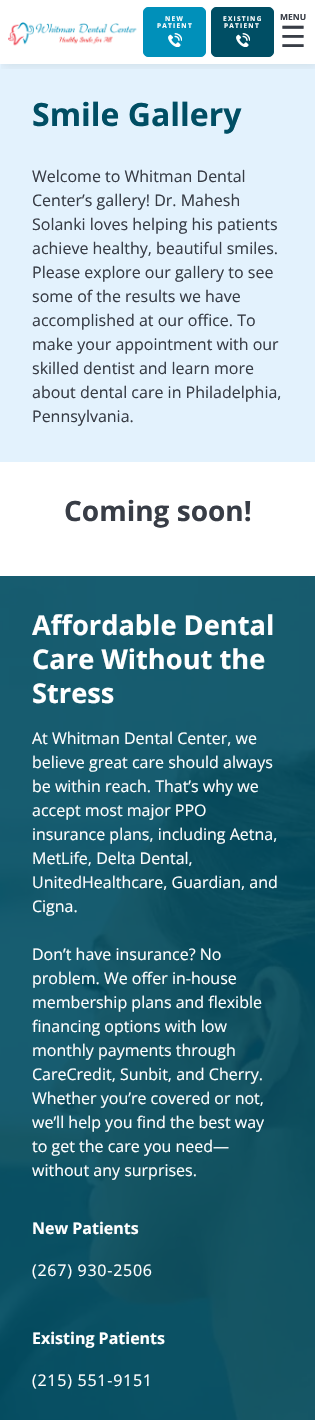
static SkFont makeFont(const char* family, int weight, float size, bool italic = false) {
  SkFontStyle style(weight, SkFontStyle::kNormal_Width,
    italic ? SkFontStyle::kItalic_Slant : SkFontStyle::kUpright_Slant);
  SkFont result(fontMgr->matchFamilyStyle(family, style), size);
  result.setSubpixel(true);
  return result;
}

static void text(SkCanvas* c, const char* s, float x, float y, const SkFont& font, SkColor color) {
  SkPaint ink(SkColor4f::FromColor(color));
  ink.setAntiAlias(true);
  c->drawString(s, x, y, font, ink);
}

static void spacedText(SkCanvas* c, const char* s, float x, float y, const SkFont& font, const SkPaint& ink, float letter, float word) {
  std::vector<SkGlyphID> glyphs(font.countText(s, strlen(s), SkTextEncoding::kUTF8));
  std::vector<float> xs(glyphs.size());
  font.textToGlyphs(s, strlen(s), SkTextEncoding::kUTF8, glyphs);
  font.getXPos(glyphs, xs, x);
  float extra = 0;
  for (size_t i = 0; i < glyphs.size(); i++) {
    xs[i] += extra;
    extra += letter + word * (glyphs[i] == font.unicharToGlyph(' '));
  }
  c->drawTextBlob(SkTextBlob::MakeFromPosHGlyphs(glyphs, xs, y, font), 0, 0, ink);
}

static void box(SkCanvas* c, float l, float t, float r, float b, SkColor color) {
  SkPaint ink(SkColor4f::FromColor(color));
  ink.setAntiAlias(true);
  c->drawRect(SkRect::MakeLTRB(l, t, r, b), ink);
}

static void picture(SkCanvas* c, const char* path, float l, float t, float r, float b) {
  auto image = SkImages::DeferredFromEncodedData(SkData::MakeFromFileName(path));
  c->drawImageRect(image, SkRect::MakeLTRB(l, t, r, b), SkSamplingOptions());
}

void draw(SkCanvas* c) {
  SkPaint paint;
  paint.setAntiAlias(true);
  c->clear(0xffffffff);
  box(c, 0, 64, 315, 462, 0xffe3f2fd);
  c->save();
  c->clipRect(SkRect::MakeLTRB(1, 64, 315, 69));
  paint.setColor(0x14000000);
  paint.setMaskFilter(SkMaskFilter::MakeBlur(kNormal_SkBlurStyle, 5));
  c->drawRect(SkRect::MakeLTRB(2, 2, 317, 66), paint);
  paint.setMaskFilter(nullptr);
  c->restore();
  picture(c, "img_01.png", 8, 22, 137, 46);
  paint.setColor(0xff0090ba);
  c->drawRoundRect(SkRect::MakeLTRB(143.5f, 7.5f, 205.5f, 56.5f), 4.5f, 4.5f, paint);
  paint.setStyle(SkPaint::kStroke_Style);
  paint.setStrokeWidth(1);
  c->drawRoundRect(SkRect::MakeLTRB(143.5f, 7.5f, 205.5f, 56.5f), 4.5f, 4.5f, paint);
  SkFont face1 = makeFont("Open Sans", 700, 6.5f);
  paint.setStyle(SkPaint::kFill_Style);
  paint.setColor(0xffffffff);
  spacedText(c, "NEW", 165, 21, face1, paint, 1.25f, 0);
  spacedText(c, "PATIENT", 157, 28, face1, paint, 1.25f, 0);
  picture(c, "img_02.png", 168, 33, 182, 47);
  paint.setColor(0xff004e64);
  c->drawRoundRect(SkRect::MakeLTRB(211.5f, 7.5f, 273.5f, 56.5f), 4.5f, 4.5f, paint);
  paint.setStyle(SkPaint::kStroke_Style);
  c->drawRoundRect(SkRect::MakeLTRB(211.5f, 7.5f, 273.5f, 56.5f), 4.5f, 4.5f, paint);
  paint.setStyle(SkPaint::kFill_Style);
  paint.setColor(0xffffffff);
  spacedText(c, "EXISTING", 223, 21, face1, paint, 1.25f, 0);
  spacedText(c, "PATIENT", 224, 28, face1, paint, 1.25f, 0);
  picture(c, "img_03.png", 236, 33, 250, 47);
  SkFont face2 = makeFont("Open Sans", 700, 8.5f);
  text(c, "MENU", 280, 20, face2, 0xff383d46);
  SkFont face3 = makeFont("DejaVu Sans", 400, 29);
  text(c, "☰", 280, 47, face3, 0xff383d46);
  SkFont face4 = makeFont("Open Sans", 700, 32);
  text(c, "Smile Gallery", 32, 126, face4, 0xff004e64);
  SkFont face5 = makeFont("Open Sans", 400, 16);
  text(c, "Welcome to Whitman Dental", 32, 182, face5, 0xff383d46);
  text(c, "Center’s gallery! Dr. Mahesh", 32, 206, face5, 0xff383d46);
  text(c, "Solanki loves helping his patients", 32, 230, face5, 0xff383d46);
  text(c, "achieve healthy, beautiful smiles.", 32, 254, face5, 0xff383d46);
  text(c, "Please explore our gallery to see", 32, 278, face5, 0xff383d46);
  text(c, "some of the results we have", 32, 302, face5, 0xff383d46);
  text(c, "accomplished at our office. To", 32, 326, face5, 0xff383d46);
  text(c, "make your appointment with our", 32, 350, face5, 0xff383d46);
  text(c, "skilled dentist and learn more", 32, 374, face5, 0xff383d46);
  text(c, "about dental care in Philadelphia,", 32, 398, face5, 0xff383d46);
  text(c, "Pennsylvania.", 32, 422, face5, 0xff383d46);
  SkFont face6 = makeFont("Open Sans", 700, 28);
  text(c, "Coming soon!", 64, 521, face6, 0xff383d46);
  picture(c, "img_04.png", 0, 576, 315, 1420);
  SkFont face7 = makeFont("Open Sans", 700, 27.25f);
  text(c, "Affordable Dental", 32, 635, face7, 0xffffffff);
  text(c, "Care Without the", 32, 669, face7, 0xffffffff);
  text(c, "Stress", 32, 703, face7, 0xffffffff);
  text(c, "At Whitman Dental Center, we", 32, 744, face5, 0xffffffff);
  text(c, "believe great care should always", 32, 768, face5, 0xffffffff);
  text(c, "be within reach. That’s why we", 32, 792, face5, 0xffffffff);
  text(c, "accept most major PPO", 32, 816, face5, 0xffffffff);
  text(c, "insurance plans, including Aetna,", 32, 840, face5, 0xffffffff);
  text(c, "MetLife, Delta Dental,", 32, 864, face5, 0xffffffff);
  text(c, "UnitedHealthcare, Guardian, and", 32, 888, face5, 0xffffffff);
  text(c, "Cigna.", 32, 912, face5, 0xffffffff);
  text(c, "Don’t have insurance? No", 32, 960, face5, 0xffffffff);
  text(c, "problem. We offer in-house", 32, 984, face5, 0xffffffff);
  text(c, "membership plans and flexible", 32, 1008, face5, 0xffffffff);
  text(c, "financing options with low", 32, 1032, face5, 0xffffffff);
  text(c, "monthly payments through", 32, 1056, face5, 0xffffffff);
  text(c, "CareCredit, Sunbit, and Cherry.", 32, 1080, face5, 0xffffffff);
  text(c, "Whether you’re covered or not,", 32, 1104, face5, 0xffffffff);
  text(c, "we’ll help you find the best way", 32, 1128, face5, 0xffffffff);
  text(c, "to get the care you need—", 32, 1152, face5, 0xffffffff);
  text(c, "without any surprises.", 32, 1176, face5, 0xffffffff);
  SkFont face8 = makeFont("Open Sans", 700, 16);
  text(c, "New Patients", 32, 1234, face8, 0xffffffff);
  spacedText(c, "(267) 930-2506", 32, 1276, face5, paint, 0.75f, 0);
  text(c, "Existing Patients", 32, 1344, face8, 0xffffffff);
  spacedText(c, "(215) 551-9151", 32, 1386, face5, paint, 0.75f, 0);
}
